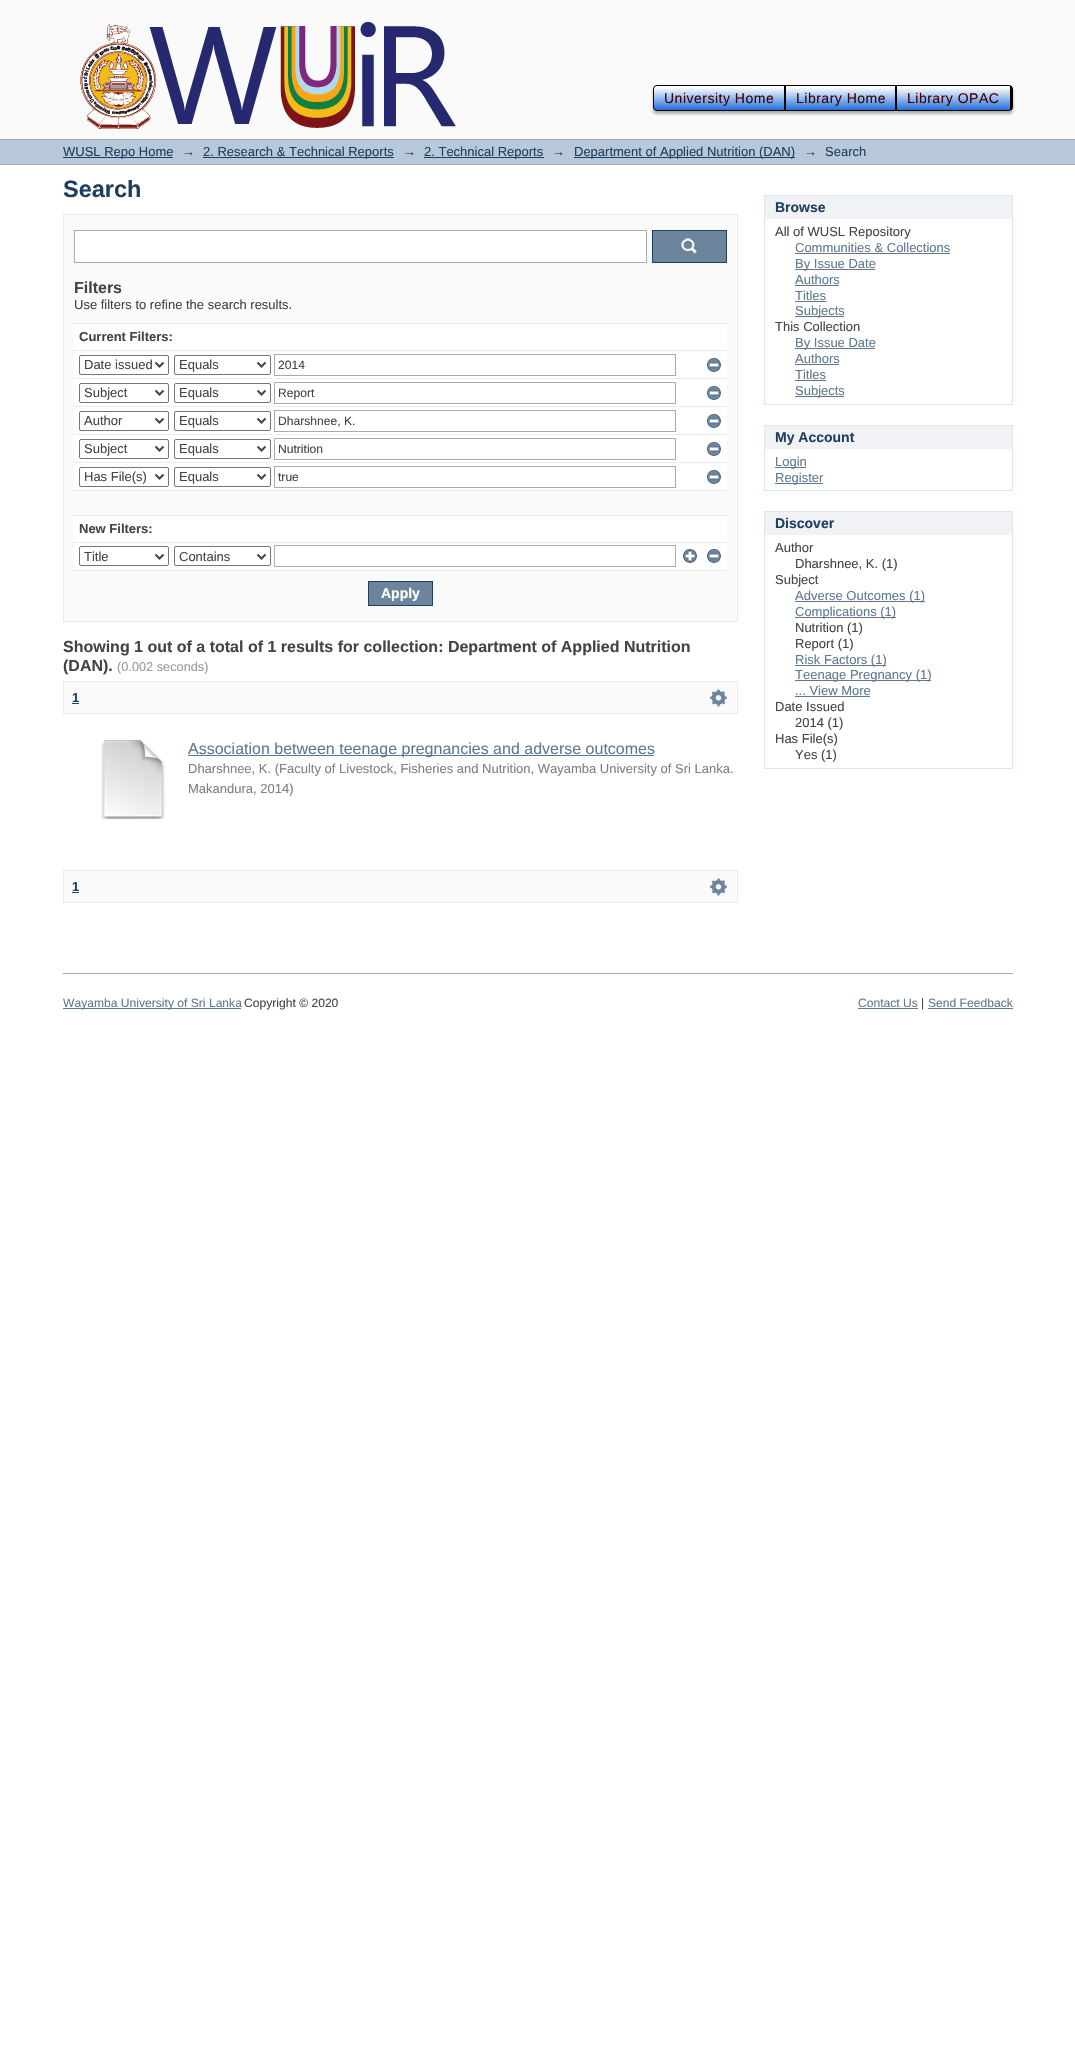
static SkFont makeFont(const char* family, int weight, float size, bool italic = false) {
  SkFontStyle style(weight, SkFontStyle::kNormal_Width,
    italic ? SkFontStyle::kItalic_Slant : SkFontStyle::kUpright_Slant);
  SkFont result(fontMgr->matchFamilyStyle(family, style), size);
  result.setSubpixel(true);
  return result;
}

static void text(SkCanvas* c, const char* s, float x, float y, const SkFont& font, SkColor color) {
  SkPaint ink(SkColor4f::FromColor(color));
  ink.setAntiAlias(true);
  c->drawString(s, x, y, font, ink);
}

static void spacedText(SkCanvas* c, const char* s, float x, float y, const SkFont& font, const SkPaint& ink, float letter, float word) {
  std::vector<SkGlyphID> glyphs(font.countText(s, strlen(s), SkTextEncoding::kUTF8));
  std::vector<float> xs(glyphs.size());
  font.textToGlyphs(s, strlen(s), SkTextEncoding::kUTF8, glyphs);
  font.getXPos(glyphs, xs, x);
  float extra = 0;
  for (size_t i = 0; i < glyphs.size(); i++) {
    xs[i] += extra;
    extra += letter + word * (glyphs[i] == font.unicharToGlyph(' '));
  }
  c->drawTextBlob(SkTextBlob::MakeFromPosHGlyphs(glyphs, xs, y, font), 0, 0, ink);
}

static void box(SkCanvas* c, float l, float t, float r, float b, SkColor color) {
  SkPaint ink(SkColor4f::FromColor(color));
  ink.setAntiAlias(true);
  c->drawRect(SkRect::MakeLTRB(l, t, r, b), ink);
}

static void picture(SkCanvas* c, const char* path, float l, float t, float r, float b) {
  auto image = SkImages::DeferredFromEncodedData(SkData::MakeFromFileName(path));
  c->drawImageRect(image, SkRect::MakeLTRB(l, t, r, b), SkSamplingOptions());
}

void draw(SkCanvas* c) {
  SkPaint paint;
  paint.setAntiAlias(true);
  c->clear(0xffffffff);
  box(c, 0, 0, 1075, 139, 0xfffafafa);
  picture(c, "img_01.png", 80, 22, 456, 129);
  paint.setColor(0x4d000000);
  paint.setMaskFilter(SkMaskFilter::MakeBlur(kNormal_SkBlurStyle, 1.5f));
  c->drawRoundRect(SkRect::MakeLTRB(653, 88, 1013, 114), 4, 4, paint);
  paint.setMaskFilter(nullptr);
  c->save();
  c->clipPath(SkPathBuilder().moveTo(657, 85).lineTo(1009, 85).cubicTo(1011, 85, 1013, 87, 1013, 89).lineTo(1013, 107).cubicTo(1013, 109, 1011, 111, 1009, 111).lineTo(657, 111).cubicTo(655, 111, 653, 109, 653, 107).lineTo(653, 89).cubicTo(653, 87, 655, 85, 657, 85).close().detach(), true);
  {
    const SkColor colors[] = {0xffffffff, 0xff256fd9};
    const float stops[] = {0.05f, 1};
    const SkPoint ends[] = {{654, 86}, {654, 110}};
    paint.setShader(SkGradientShader::MakeLinear(ends, colors, stops, 2, SkTileMode::kClamp));
    paint.setAlpha(255);
  }
  c->drawRect(SkRect::MakeLTRB(653, 86, 1013, 110), paint);
  c->restore();
  paint.setStyle(SkPaint::kStroke_Style);
  paint.setStrokeWidth(1);
  paint.setShader(nullptr);
  paint.setColor(0xff000000);
  c->drawRoundRect(SkRect::MakeLTRB(653.5f, 85.5f, 1012.5f, 110.5f), 3.5f, 3.5f, paint);
  box(c, 784, 86, 786, 110, 0xff000000);
  SkFont face1 = makeFont("Liberation Sans", 400, 14);
  paint.setStyle(SkPaint::kFill_Style);
  paint.setColor(0xff3e0000);
  spacedText(c, "University Home", 664, 103, face1, paint, 0.5f, 0);
  box(c, 895, 86, 897, 110, 0xff000000);
  spacedText(c, "Library Home", 796, 103, face1, paint, 0.5f, 0);
  box(c, 1010, 86, 1012, 110, 0xff000000);
  spacedText(c, "Library OPAC", 907, 103, face1, paint, 0.5f, 0);
  box(c, 0, 140, 1075, 164, 0xffb6c8d9);
  box(c, 0, 139, 1075, 140, 0xff9cacba);
  box(c, 0, 164, 1075, 165, 0xff9cacba);
  box(c, 63, 157, 173, 158, 0xff1f3f5e);
  SkFont face2 = makeFont("Liberation Sans", 400, 13);
  text(c, "WUSL Repo Home", 63, 156, face2, 0xff1f3f5e);
  text(c, "→", 182, 156, face2, 0xff1f3f5e);
  box(c, 203, 157, 394, 158, 0xff1f3f5e);
  text(c, "2. Research & Technical Reports", 203, 156, face2, 0xff1f3f5e);
  text(c, "→", 403, 156, face2, 0xff1f3f5e);
  box(c, 424, 157, 544, 158, 0xff1f3f5e);
  text(c, "2. Technical Reports", 424, 156, face2, 0xff1f3f5e);
  text(c, "→", 552, 156, face2, 0xff1f3f5e);
  box(c, 574, 157, 795, 158, 0xff1f3f5e);
  text(c, "Department of Applied Nutrition (DAN)", 574, 156, face2, 0xff1f3f5e);
  text(c, "→", 804, 156, face2, 0xff1f3f5e);
  text(c, "Search", 825, 156, face2, 0xff1f3f5e);
  SkFont face3 = makeFont("Liberation Sans", 700, 23.5f);
  text(c, "Search", 63, 197, face3, 0xff1f3f5e);
  paint.setColor(0xfffafafa);
  c->drawRect(SkRect::MakeLTRB(63.5f, 214.5f, 737.5f, 621.5f), paint);
  paint.setStyle(SkPaint::kStroke_Style);
  paint.setColor(0xffebebeb);
  c->drawRect(SkRect::MakeLTRB(63.5f, 214.5f, 737.5f, 621.5f), paint);
  paint.setStyle(SkPaint::kFill_Style);
  paint.setColor(0xffffffff);
  c->drawRect(SkRect::MakeLTRB(74.5f, 230.5f, 646.5f, 262.5f), paint);
  paint.setStyle(SkPaint::kStroke_Style);
  paint.setColor(0xffaaaaaa);
  c->drawRect(SkRect::MakeLTRB(74.5f, 230.5f, 646.5f, 262.5f), paint);
  box(c, 653, 231, 726, 262, 0xff6d859c);
  picture(c, "img_02.png", 681, 238, 697, 254);
  paint.setColor(0xff1f3f5e);
  c->drawRect(SkRect::MakeLTRB(652.5f, 230.5f, 726.5f, 262.5f), paint);
  SkFont face4 = makeFont("Liberation Sans", 700, 16);
  text(c, "Filters", 74, 293, face4, 0xff444444);
  text(c, "Use filters to refine the search results.", 74, 309, face2, 0xff444444);
  box(c, 74, 324, 727, 570, 0xffffffff);
  box(c, 73, 323, 727, 324, 0xffebebeb);
  SkFont face5 = makeFont("Liberation Sans", 700, 13);
  text(c, "Current Filters:", 79, 341, face5, 0xff444444);
  box(c, 73, 350, 727, 351, 0xffebebeb);
  paint.setColor(0xff767676);
  c->drawRoundRect(SkRect::MakeLTRB(79.5f, 355.5f, 168.5f, 374.5f), 1.5f, 1.5f, paint);
  paint.setStrokeWidth(2);
  paint.setColor(0xff444444);
  c->drawPath(SkPathBuilder().moveTo(155.5f, 362.5f).lineTo(159.5f, 366.5f).lineTo(163.5f, 362.5f).detach(), paint);
  text(c, "Date issued", 84, 369, face2, 0xff444444);
  paint.setStrokeWidth(1);
  paint.setColor(0xff767676);
  c->drawRoundRect(SkRect::MakeLTRB(174.5f, 355.5f, 270.5f, 374.5f), 1.5f, 1.5f, paint);
  paint.setStrokeWidth(2);
  paint.setColor(0xff444444);
  c->drawPath(SkPathBuilder().moveTo(257.5f, 362.5f).lineTo(261.5f, 366.5f).lineTo(265.5f, 362.5f).detach(), paint);
  text(c, "Equals", 179, 369, face2, 0xff444444);
  paint.setStrokeWidth(1);
  paint.setColor(0xffaaaaaa);
  c->drawRect(SkRect::MakeLTRB(274.5f, 354.5f, 675.5f, 375.5f), paint);
  SkFont face6 = makeFont("Liberation Sans", 400, 12.1f);
  text(c, "2014", 278, 369, face6, 0xff444444);
  picture(c, "img_03.png", 707, 358, 721, 372);
  box(c, 73, 378, 727, 379, 0xffebebeb);
  paint.setColor(0xff767676);
  c->drawRoundRect(SkRect::MakeLTRB(79.5f, 383.5f, 168.5f, 402.5f), 1.5f, 1.5f, paint);
  paint.setStrokeWidth(2);
  paint.setColor(0xff444444);
  c->drawPath(SkPathBuilder().moveTo(155.5f, 390.5f).lineTo(159.5f, 394.5f).lineTo(163.5f, 390.5f).detach(), paint);
  text(c, "Subject", 84, 397, face2, 0xff444444);
  paint.setStrokeWidth(1);
  paint.setColor(0xff767676);
  c->drawRoundRect(SkRect::MakeLTRB(174.5f, 383.5f, 270.5f, 402.5f), 1.5f, 1.5f, paint);
  paint.setStrokeWidth(2);
  paint.setColor(0xff444444);
  c->drawPath(SkPathBuilder().moveTo(257.5f, 390.5f).lineTo(261.5f, 394.5f).lineTo(265.5f, 390.5f).detach(), paint);
  text(c, "Equals", 179, 397, face2, 0xff444444);
  paint.setStrokeWidth(1);
  paint.setColor(0xffaaaaaa);
  c->drawRect(SkRect::MakeLTRB(274.5f, 382.5f, 675.5f, 403.5f), paint);
  text(c, "Report", 278, 397, face6, 0xff444444);
  picture(c, "img_03.png", 707, 386, 721, 400);
  box(c, 73, 406, 727, 407, 0xffebebeb);
  paint.setColor(0xff767676);
  c->drawRoundRect(SkRect::MakeLTRB(79.5f, 411.5f, 168.5f, 430.5f), 1.5f, 1.5f, paint);
  paint.setStrokeWidth(2);
  paint.setColor(0xff444444);
  c->drawPath(SkPathBuilder().moveTo(155.5f, 418.5f).lineTo(159.5f, 422.5f).lineTo(163.5f, 418.5f).detach(), paint);
  text(c, "Author", 84, 425, face2, 0xff444444);
  paint.setStrokeWidth(1);
  paint.setColor(0xff767676);
  c->drawRoundRect(SkRect::MakeLTRB(174.5f, 411.5f, 270.5f, 430.5f), 1.5f, 1.5f, paint);
  paint.setStrokeWidth(2);
  paint.setColor(0xff444444);
  c->drawPath(SkPathBuilder().moveTo(257.5f, 418.5f).lineTo(261.5f, 422.5f).lineTo(265.5f, 418.5f).detach(), paint);
  text(c, "Equals", 179, 425, face2, 0xff444444);
  paint.setStrokeWidth(1);
  paint.setColor(0xffaaaaaa);
  c->drawRect(SkRect::MakeLTRB(274.5f, 410.5f, 675.5f, 431.5f), paint);
  text(c, "Dharshnee, K.", 278, 425, face6, 0xff444444);
  picture(c, "img_03.png", 707, 414, 721, 428);
  box(c, 73, 434, 727, 435, 0xffebebeb);
  paint.setColor(0xff767676);
  c->drawRoundRect(SkRect::MakeLTRB(79.5f, 439.5f, 168.5f, 458.5f), 1.5f, 1.5f, paint);
  paint.setStrokeWidth(2);
  paint.setColor(0xff444444);
  c->drawPath(SkPathBuilder().moveTo(155.5f, 446.5f).lineTo(159.5f, 450.5f).lineTo(163.5f, 446.5f).detach(), paint);
  text(c, "Subject", 84, 453, face2, 0xff444444);
  paint.setStrokeWidth(1);
  paint.setColor(0xff767676);
  c->drawRoundRect(SkRect::MakeLTRB(174.5f, 439.5f, 270.5f, 458.5f), 1.5f, 1.5f, paint);
  paint.setStrokeWidth(2);
  paint.setColor(0xff444444);
  c->drawPath(SkPathBuilder().moveTo(257.5f, 446.5f).lineTo(261.5f, 450.5f).lineTo(265.5f, 446.5f).detach(), paint);
  text(c, "Equals", 179, 453, face2, 0xff444444);
  paint.setStrokeWidth(1);
  paint.setColor(0xffaaaaaa);
  c->drawRect(SkRect::MakeLTRB(274.5f, 438.5f, 675.5f, 459.5f), paint);
  text(c, "Nutrition", 278, 453, face6, 0xff444444);
  picture(c, "img_03.png", 707, 442, 721, 456);
  box(c, 73, 462, 727, 463, 0xffebebeb);
  paint.setColor(0xff767676);
  c->drawRoundRect(SkRect::MakeLTRB(79.5f, 467.5f, 168.5f, 486.5f), 1.5f, 1.5f, paint);
  paint.setStrokeWidth(2);
  paint.setColor(0xff444444);
  c->drawPath(SkPathBuilder().moveTo(155.5f, 474.5f).lineTo(159.5f, 478.5f).lineTo(163.5f, 474.5f).detach(), paint);
  text(c, "Has File(s)", 84, 481, face2, 0xff444444);
  paint.setStrokeWidth(1);
  paint.setColor(0xff767676);
  c->drawRoundRect(SkRect::MakeLTRB(174.5f, 467.5f, 270.5f, 486.5f), 1.5f, 1.5f, paint);
  paint.setStrokeWidth(2);
  paint.setColor(0xff444444);
  c->drawPath(SkPathBuilder().moveTo(257.5f, 474.5f).lineTo(261.5f, 478.5f).lineTo(265.5f, 474.5f).detach(), paint);
  text(c, "Equals", 179, 481, face2, 0xff444444);
  paint.setStrokeWidth(1);
  paint.setColor(0xffaaaaaa);
  c->drawRect(SkRect::MakeLTRB(274.5f, 466.5f, 675.5f, 487.5f), paint);
  text(c, "true", 278, 481, face6, 0xff444444);
  picture(c, "img_03.png", 707, 470, 721, 484);
  box(c, 74, 491, 727, 515, 0xfffafafa);
  box(c, 73, 490, 727, 491, 0xffebebeb);
  box(c, 73, 515, 727, 516, 0xffebebeb);
  text(c, "New Filters:", 79, 533, face5, 0xff444444);
  box(c, 73, 542, 727, 543, 0xffebebeb);
  paint.setColor(0xff767676);
  c->drawRoundRect(SkRect::MakeLTRB(79.5f, 546.5f, 168.5f, 565.5f), 1.5f, 1.5f, paint);
  paint.setStrokeWidth(2);
  paint.setColor(0xff444444);
  c->drawPath(SkPathBuilder().moveTo(155.5f, 554.5f).lineTo(159.5f, 558.5f).lineTo(163.5f, 554.5f).detach(), paint);
  text(c, "Title", 84, 561, face2, 0xff444444);
  paint.setStrokeWidth(1);
  paint.setColor(0xff767676);
  c->drawRoundRect(SkRect::MakeLTRB(174.5f, 546.5f, 270.5f, 565.5f), 1.5f, 1.5f, paint);
  paint.setStrokeWidth(2);
  paint.setColor(0xff444444);
  c->drawPath(SkPathBuilder().moveTo(257.5f, 554.5f).lineTo(261.5f, 558.5f).lineTo(265.5f, 554.5f).detach(), paint);
  text(c, "Contains", 179, 561, face2, 0xff444444);
  paint.setStrokeWidth(1);
  paint.setColor(0xffaaaaaa);
  c->drawRect(SkRect::MakeLTRB(274.5f, 545.5f, 675.5f, 566.5f), paint);
  picture(c, "img_04.png", 683, 549, 697, 563);
  picture(c, "img_03.png", 707, 549, 721, 563);
  box(c, 73, 570, 727, 571, 0xffebebeb);
  paint.setStyle(SkPaint::kFill_Style);
  paint.setColor(0xff6d859c);
  c->drawRect(SkRect::MakeLTRB(368.5f, 581.5f, 432.5f, 605.5f), paint);
  paint.setStyle(SkPaint::kStroke_Style);
  paint.setColor(0xff1f3f5e);
  c->drawRect(SkRect::MakeLTRB(368.5f, 581.5f, 432.5f, 605.5f), paint);
  SkFont face7 = makeFont("Liberation Sans", 700, 14);
  text(c, "Apply", 381, 598, face7, 0xffffffff);
  text(c, "Showing 1 out of a total of 1 results for collection: Department of Applied Nutrition", 63, 652, face4, 0xff444444);
  text(c, "(DAN).", 63, 671, face4, 0xff444444);
  SkFont face8 = makeFont("Liberation Sans", 400, 12.75f);
  text(c, "(0.002 seconds)", 117, 671, face8, 0xff999999);
  paint.setStyle(SkPaint::kFill_Style);
  paint.setColor(0xfffafafa);
  c->drawRect(SkRect::MakeLTRB(63.5f, 681.5f, 737.5f, 713.5f), paint);
  paint.setStyle(SkPaint::kStroke_Style);
  paint.setColor(0xffebebeb);
  c->drawRect(SkRect::MakeLTRB(63.5f, 681.5f, 737.5f, 713.5f), paint);
  text(c, "1", 72, 702, face5, 0xff1f3f5e);
  box(c, 72, 703, 79, 704, 0xff1f3f5e);
  picture(c, "img_05.png", 710, 689, 727, 707);
  picture(c, "img_06.png", 101, 740, 165, 819);
  box(c, 188, 755, 654, 756, 0xff607890);
  SkFont face9 = makeFont("Liberation Sans", 400, 16);
  text(c, "Association between teenage pregnancies and adverse outcomes", 188, 754, face9, 0xff607890);
  text(c, "Dharshnee, K. (Faculty of Livestock, Fisheries and Nutrition, Wayamba University of Sri Lanka.", 188, 773, face2, 0xff808080);
  text(c, "Makandura, 2014)", 188, 793, face2, 0xff808080);
  paint.setStyle(SkPaint::kFill_Style);
  paint.setColor(0xfffafafa);
  c->drawRect(SkRect::MakeLTRB(63.5f, 870.5f, 737.5f, 902.5f), paint);
  paint.setStyle(SkPaint::kStroke_Style);
  paint.setColor(0xffebebeb);
  c->drawRect(SkRect::MakeLTRB(63.5f, 870.5f, 737.5f, 902.5f), paint);
  text(c, "1", 72, 891, face5, 0xff1f3f5e);
  box(c, 72, 892, 79, 893, 0xff1f3f5e);
  picture(c, "img_05.png", 710, 878, 727, 896);
  box(c, 765, 196, 1012, 219, 0xfff0f2f5);
  box(c, 764, 195, 1013, 196, 0xffd8e8eb);
  box(c, 1012, 195, 1013, 405, 0xffd8e8eb);
  box(c, 764, 195, 765, 219, 0xffd8e8eb);
  text(c, "Browse", 775, 212, face7, 0xff1f3f5e);
  box(c, 764, 404, 1013, 405, 0xffd8e8eb);
  box(c, 764, 219, 765, 405, 0xffd8e8eb);
  text(c, "All of WUSL Repository", 775, 236, face2, 0xff444444);
  text(c, "Communities & Collections", 795, 252, face2, 0xff607890);
  box(c, 795, 253, 950, 254, 0xff607890);
  box(c, 795, 269, 875, 270, 0xff607890);
  text(c, "By Issue Date", 795, 268, face2, 0xff607890);
  text(c, "Authors", 795, 284, face2, 0xff607890);
  box(c, 795, 285, 839, 286, 0xff607890);
  text(c, "Titles", 795, 300, face2, 0xff607890);
  box(c, 795, 301, 826, 302, 0xff607890);
  box(c, 795, 316, 844, 317, 0xff607890);
  text(c, "Subjects", 795, 315, face2, 0xff607890);
  text(c, "This Collection", 775, 331, face2, 0xff444444);
  box(c, 795, 348, 875, 349, 0xff607890);
  text(c, "By Issue Date", 795, 347, face2, 0xff607890);
  text(c, "Authors", 795, 363, face2, 0xff607890);
  box(c, 795, 364, 839, 365, 0xff607890);
  text(c, "Titles", 795, 379, face2, 0xff607890);
  box(c, 795, 380, 826, 381, 0xff607890);
  box(c, 795, 396, 844, 397, 0xff607890);
  text(c, "Subjects", 795, 395, face2, 0xff607890);
  box(c, 765, 426, 1012, 449, 0xfff0f2f5);
  box(c, 764, 425, 1013, 426, 0xffd8e8eb);
  box(c, 1012, 425, 1013, 491, 0xffd8e8eb);
  box(c, 764, 425, 765, 449, 0xffd8e8eb);
  text(c, "My Account", 775, 442, face7, 0xff1f3f5e);
  box(c, 764, 490, 1013, 491, 0xffd8e8eb);
  box(c, 764, 449, 765, 491, 0xffd8e8eb);
  box(c, 775, 467, 806, 468, 0xff607890);
  text(c, "Login", 775, 466, face2, 0xff607890);
  box(c, 775, 483, 823, 484, 0xff607890);
  text(c, "Register", 775, 482, face2, 0xff607890);
  box(c, 765, 512, 1012, 535, 0xfff0f2f5);
  box(c, 764, 511, 1013, 512, 0xffd8e8eb);
  box(c, 1012, 511, 1013, 769, 0xffd8e8eb);
  box(c, 764, 511, 765, 535, 0xffd8e8eb);
  text(c, "Discover", 775, 528, face7, 0xff1f3f5e);
  box(c, 764, 768, 1013, 769, 0xffd8e8eb);
  box(c, 764, 535, 765, 769, 0xffd8e8eb);
  text(c, "Author", 775, 552, face2, 0xff444444);
  text(c, "Dharshnee, K. (1)", 795, 568, face2, 0xff444444);
  text(c, "Subject", 775, 584, face2, 0xff444444);
  box(c, 795, 601, 925, 602, 0xff607890);
  text(c, "Adverse Outcomes (1)", 795, 600, face2, 0xff607890);
  box(c, 795, 617, 896, 618, 0xff607890);
  text(c, "Complications (1)", 795, 616, face2, 0xff607890);
  text(c, "Nutrition (1)", 795, 632, face2, 0xff444444);
  text(c, "Report (1)", 795, 648, face2, 0xff444444);
  box(c, 795, 665, 886, 666, 0xff607890);
  text(c, "Risk Factors (1)", 795, 664, face2, 0xff607890);
  box(c, 795, 680, 931, 681, 0xff607890);
  text(c, "Teenage Pregnancy (1)", 795, 679, face2, 0xff607890);
  text(c, "... View More", 795, 695, face2, 0xff607890);
  box(c, 795, 696, 870, 697, 0xff607890);
  text(c, "Date Issued", 775, 711, face2, 0xff444444);
  text(c, "2014 (1)", 795, 727, face2, 0xff444444);
  text(c, "Has File(s)", 775, 743, face2, 0xff444444);
  text(c, "Yes (1)", 795, 759, face2, 0xff444444);
  box(c, 63, 973, 1013, 974, 0xff9cacba);
  box(c, 63, 1008, 241, 1009, 0xff607890);
  text(c, "Wayamba University of Sri Lanka", 63, 1007, face6, 0xff607890);
  text(c, "Copyright © 2020", 244, 1007, face6, 0xff444444);
  text(c, "Contact Us", 858, 1007, face6, 0xff607890);
  box(c, 858, 1008, 918, 1009, 0xff607890);
  text(c, "|", 921, 1007, face6, 0xff444444);
  text(c, "Send Feedback", 928, 1007, face6, 0xff607890);
  box(c, 928, 1008, 1013, 1009, 0xff607890);
}
